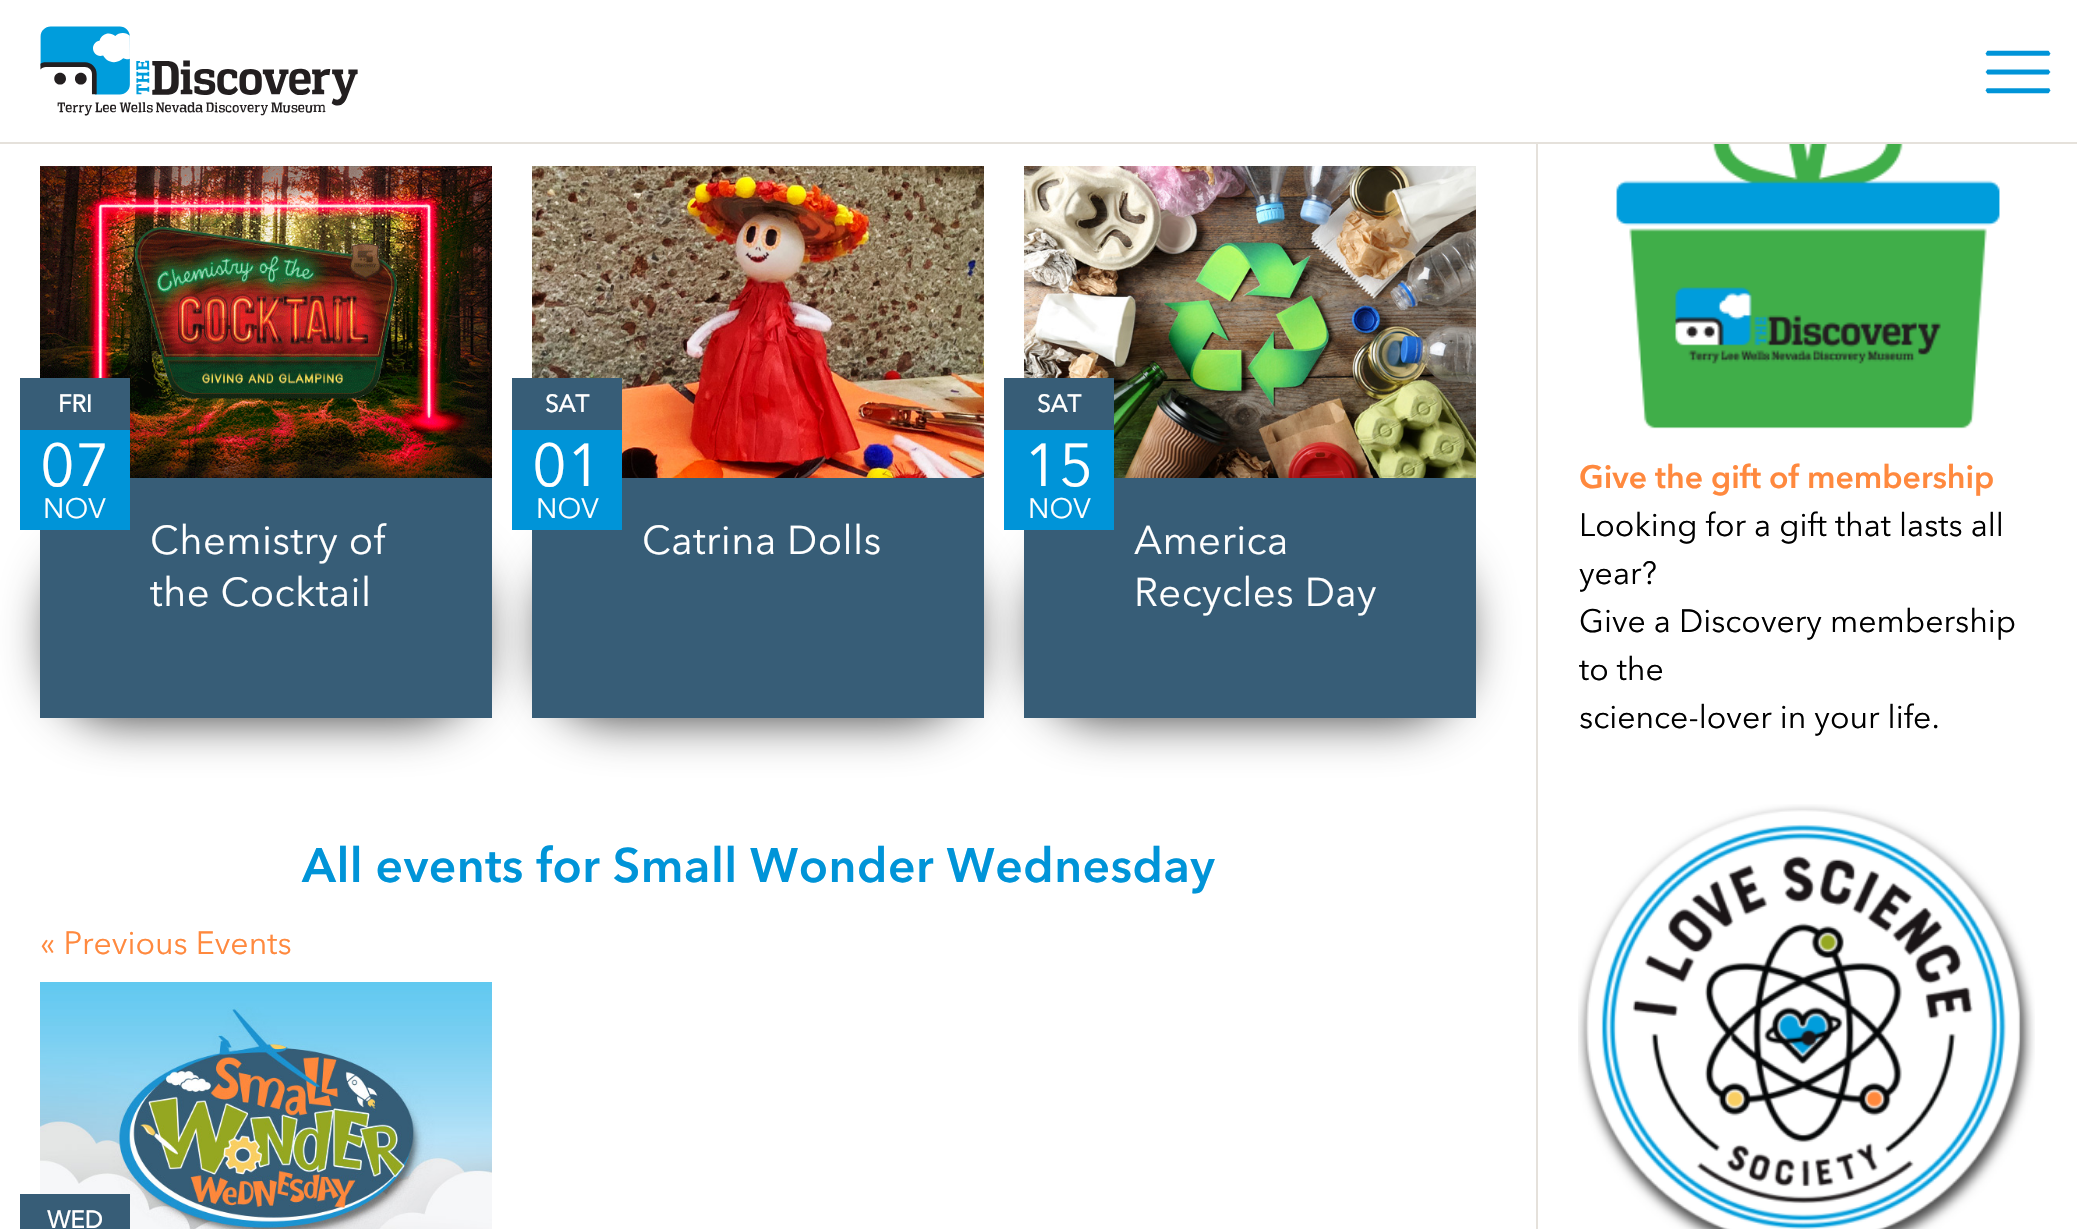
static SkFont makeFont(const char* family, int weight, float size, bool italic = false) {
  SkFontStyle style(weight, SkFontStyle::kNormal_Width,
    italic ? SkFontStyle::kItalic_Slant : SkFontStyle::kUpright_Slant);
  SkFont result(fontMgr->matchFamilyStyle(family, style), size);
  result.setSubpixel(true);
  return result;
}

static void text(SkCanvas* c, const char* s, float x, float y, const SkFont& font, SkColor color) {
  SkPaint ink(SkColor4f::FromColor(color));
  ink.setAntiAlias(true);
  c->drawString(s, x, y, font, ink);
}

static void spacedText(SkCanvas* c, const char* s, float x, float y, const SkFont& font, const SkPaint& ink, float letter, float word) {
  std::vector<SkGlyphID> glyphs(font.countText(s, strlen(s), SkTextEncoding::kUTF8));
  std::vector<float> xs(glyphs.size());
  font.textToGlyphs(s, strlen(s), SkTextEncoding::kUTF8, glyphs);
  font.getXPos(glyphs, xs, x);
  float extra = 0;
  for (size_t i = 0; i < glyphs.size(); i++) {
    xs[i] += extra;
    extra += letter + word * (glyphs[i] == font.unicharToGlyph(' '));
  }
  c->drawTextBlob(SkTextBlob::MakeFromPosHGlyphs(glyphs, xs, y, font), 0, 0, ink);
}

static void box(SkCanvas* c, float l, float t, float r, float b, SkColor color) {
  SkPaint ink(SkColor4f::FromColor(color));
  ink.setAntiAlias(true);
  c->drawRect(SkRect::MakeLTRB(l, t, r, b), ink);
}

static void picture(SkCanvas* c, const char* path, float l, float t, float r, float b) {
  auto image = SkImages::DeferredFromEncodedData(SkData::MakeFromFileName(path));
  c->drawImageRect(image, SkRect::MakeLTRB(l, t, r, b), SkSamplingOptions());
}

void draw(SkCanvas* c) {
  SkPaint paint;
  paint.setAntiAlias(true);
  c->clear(0xffffffff);
  box(c, 0, 142, 2077, 144, 0xffe5e1db);
  picture(c, "img_01.png", 40, 26, 358, 116);
  picture(c, "img_02.png", 1985, 50, 2051, 94);
  paint.setColor(0xcc000000);
  paint.setMaskFilter(SkMaskFilter::MakeBlur(kNormal_SkBlurStyle, 25));
  c->drawRoundRect(SkRect::MakeLTRB(1038, 552, 1462, 718), 66, 66, paint);
  paint.setMaskFilter(nullptr);
  box(c, 1536, 144, 1538, 1229, 0xffe5e1db);
  paint.setMaskFilter(SkMaskFilter::MakeBlur(kNormal_SkBlurStyle, 25));
  c->drawRoundRect(SkRect::MakeLTRB(54, 552, 478, 718), 66, 66, paint);
  paint.setMaskFilter(nullptr);
  paint.setMaskFilter(SkMaskFilter::MakeBlur(kNormal_SkBlurStyle, 25));
  c->drawRoundRect(SkRect::MakeLTRB(546, 552, 970, 718), 66, 66, paint);
  paint.setMaskFilter(nullptr);
  box(c, 40, 478, 492, 718, 0xff375d77);
  picture(c, "img_03.png", 40, 166, 492, 478);
  box(c, 20, 430, 130, 530, 0xff0094d8);
  box(c, 20, 378, 130, 430, 0xff375d77);
  SkFont face1 = makeFont("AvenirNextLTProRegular", 700, 24);
  text(c, "FRI", 58, 412, face1, 0xffffffff);
  SkFont face2 = makeFont("AvenirNextLTProRegular", 400, 60);
  text(c, "07", 40, 486, face2, 0xffffffff);
  SkFont face3 = makeFont("AvenirNextLTProRegular", 400, 28);
  text(c, "NOV", 43, 518, face3, 0xffffffff);
  SkFont face4 = makeFont("AvenirNextLTProRegular", 400, 40);
  paint.setColor(0xffffffff);
  spacedText(c, "Chemistry of", 150, 554, face4, paint, 0.4f, 0);
  spacedText(c, "the Cocktail", 150, 606, face4, paint, 0.4f, 0);
  box(c, 532, 478, 984, 718, 0xff375d77);
  picture(c, "img_04.png", 532, 166, 984, 478);
  box(c, 512, 430, 622, 530, 0xff0094d8);
  box(c, 512, 378, 622, 430, 0xff375d77);
  text(c, "SAT", 545, 412, face1, 0xffffffff);
  text(c, "01", 532, 486, face2, 0xffffffff);
  text(c, "NOV", 536, 518, face3, 0xffffffff);
  spacedText(c, "Catrina Dolls", 642, 554, face4, paint, 0.4f, 0);
  box(c, 1024, 478, 1476, 718, 0xff375d77);
  picture(c, "img_05.png", 1024, 166, 1476, 478);
  box(c, 1004, 430, 1114, 530, 0xff0094d8);
  box(c, 1004, 378, 1114, 430, 0xff375d77);
  text(c, "SAT", 1037, 412, face1, 0xffffffff);
  text(c, "15", 1024, 486, face2, 0xffffffff);
  text(c, "NOV", 1028, 518, face3, 0xffffffff);
  spacedText(c, "America", 1134, 554, face4, paint, 0.4f, 0);
  spacedText(c, "Recycles Day", 1134, 606, face4, paint, 0.4f, 0);
  SkFont face5 = makeFont("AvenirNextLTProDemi", 400, 48);
  paint.setColor(0xff0094d8);
  spacedText(c, "All events for Small Wonder Wednesday", 302, 882, face5, paint, 0.5f, 0);
  SkFont face6 = makeFont("AvenirNextLTProRegular", 400, 32);
  text(c, "« Previous Events", 40, 954, face6, 0xffff893e);
  picture(c, "img_06.png", 40, 982, 492, 1229);
  box(c, 20, 1194, 130, 1229, 0xff375d77);
  text(c, "WED", 47, 1228, face1, 0xffffffff);
  picture(c, "img_07.png", 1616, 144, 2000, 429);
  SkFont face7 = makeFont("AvenirNextLTProDemi", 400, 32);
  text(c, "Give the gift of membership", 1579, 488, face7, 0xffff893e);
  text(c, "Looking for a gift that lasts all", 1579, 536, face6, 0xff000000);
  text(c, "year?", 1579, 584, face6, 0xff000000);
  text(c, "Give a Discovery membership", 1579, 632, face6, 0xff000000);
  text(c, "to the", 1579, 680, face6, 0xff000000);
  text(c, "science-lover in your life.", 1579, 728, face6, 0xff000000);
  picture(c, "img_08.png", 1578, 804, 2035, 1229);
}
